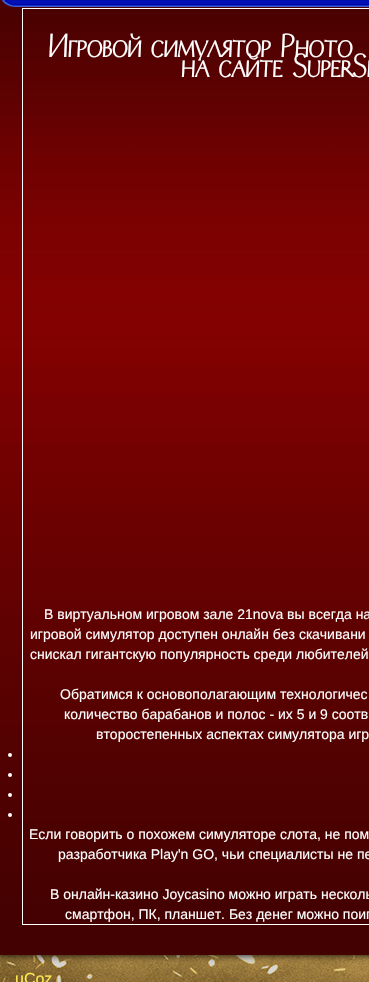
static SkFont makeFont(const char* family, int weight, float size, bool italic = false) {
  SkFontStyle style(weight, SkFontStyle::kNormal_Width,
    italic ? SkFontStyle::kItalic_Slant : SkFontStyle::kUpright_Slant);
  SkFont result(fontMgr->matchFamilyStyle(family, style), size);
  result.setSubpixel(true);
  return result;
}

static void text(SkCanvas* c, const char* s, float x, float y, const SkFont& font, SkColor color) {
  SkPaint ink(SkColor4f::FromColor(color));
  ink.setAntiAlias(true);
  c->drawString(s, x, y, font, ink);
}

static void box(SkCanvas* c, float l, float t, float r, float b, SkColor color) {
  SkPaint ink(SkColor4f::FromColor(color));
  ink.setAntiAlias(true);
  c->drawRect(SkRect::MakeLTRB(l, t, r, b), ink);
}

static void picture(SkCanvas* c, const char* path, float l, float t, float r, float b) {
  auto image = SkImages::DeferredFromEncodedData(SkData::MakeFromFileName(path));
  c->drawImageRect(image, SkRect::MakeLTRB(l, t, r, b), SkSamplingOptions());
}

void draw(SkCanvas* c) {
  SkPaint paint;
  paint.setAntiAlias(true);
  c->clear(0xffffffff);
  picture(c, "img_01.png", 0, 955, 369, 982);
  paint.setColor(0xff000000);
  paint.setMaskFilter(SkMaskFilter::MakeBlur(kNormal_SkBlurStyle, 4));
  c->drawRect(SkRect::MakeLTRB(-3, -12, 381, 955), paint);
  paint.setMaskFilter(nullptr);
  box(c, 0, 0, 369, 955, 0xffa90101);
  picture(c, "img_03.png", 0, 0, 369, 955);
  picture(c, "img_02.png", 1, 0, 369, 7);
  paint.setStyle(SkPaint::kStroke_Style);
  paint.setStrokeWidth(1);
  paint.setColor(0xffffffff);
  c->drawRect(SkRect::MakeLTRB(22.5f, 8.5f, 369.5f, 924.5f), paint);
  SkFont face1 = makeFont("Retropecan", 700, 32);
  text(c, "Игровой симулятор Photo", 48, 57, face1, 0xffffffff);
  text(c, "на сайте SuperSl", 181, 77, face1, 0xffffffff);
  SkFont face2 = makeFont("Liberation Sans", 400, 14);
  text(c, "В виртуальном игровом зале 21nova вы всегда на", 44, 619, face2, 0xffffffff);
  text(c, "игровой симулятор доступен онлайн без скачивани", 30, 639, face2, 0xffffffff);
  text(c, "снискал гигантскую популярность среди любителей", 30, 659, face2, 0xffffffff);
  text(c, "Обратимся к основополагающим технологичес", 60, 699, face2, 0xffffffff);
  text(c, "количество барабанов и полос - их 5 и 9 соотв", 64, 719, face2, 0xffffffff);
  text(c, "второстепенных аспектах симулятора игр", 96, 739, face2, 0xffffffff);
  paint.setStyle(SkPaint::kFill_Style);
  c->drawCircle(10, 755, 2, paint);
  c->drawCircle(10, 775, 2, paint);
  c->drawCircle(10, 795, 2, paint);
  c->drawCircle(10, 815, 2, paint);
  text(c, "Если говорить о похожем симуляторе слота, не пом", 29, 839, face2, 0xffffffff);
  text(c, "разработчика Play'n GO, чьи специалисты не пе", 58, 859, face2, 0xffffffff);
  text(c, "В онлайн-казино Joycasino можно играть несколь", 50, 899, face2, 0xffffffff);
  text(c, "смартфон, ПК, планшет. Без денег можно поиг", 65, 919, face2, 0xffffffff);
  SkFont face3 = makeFont("Liberation Sans", 400, 16);
  text(c, "uCoz", 15, 984, face3, 0xffffe852);
}
